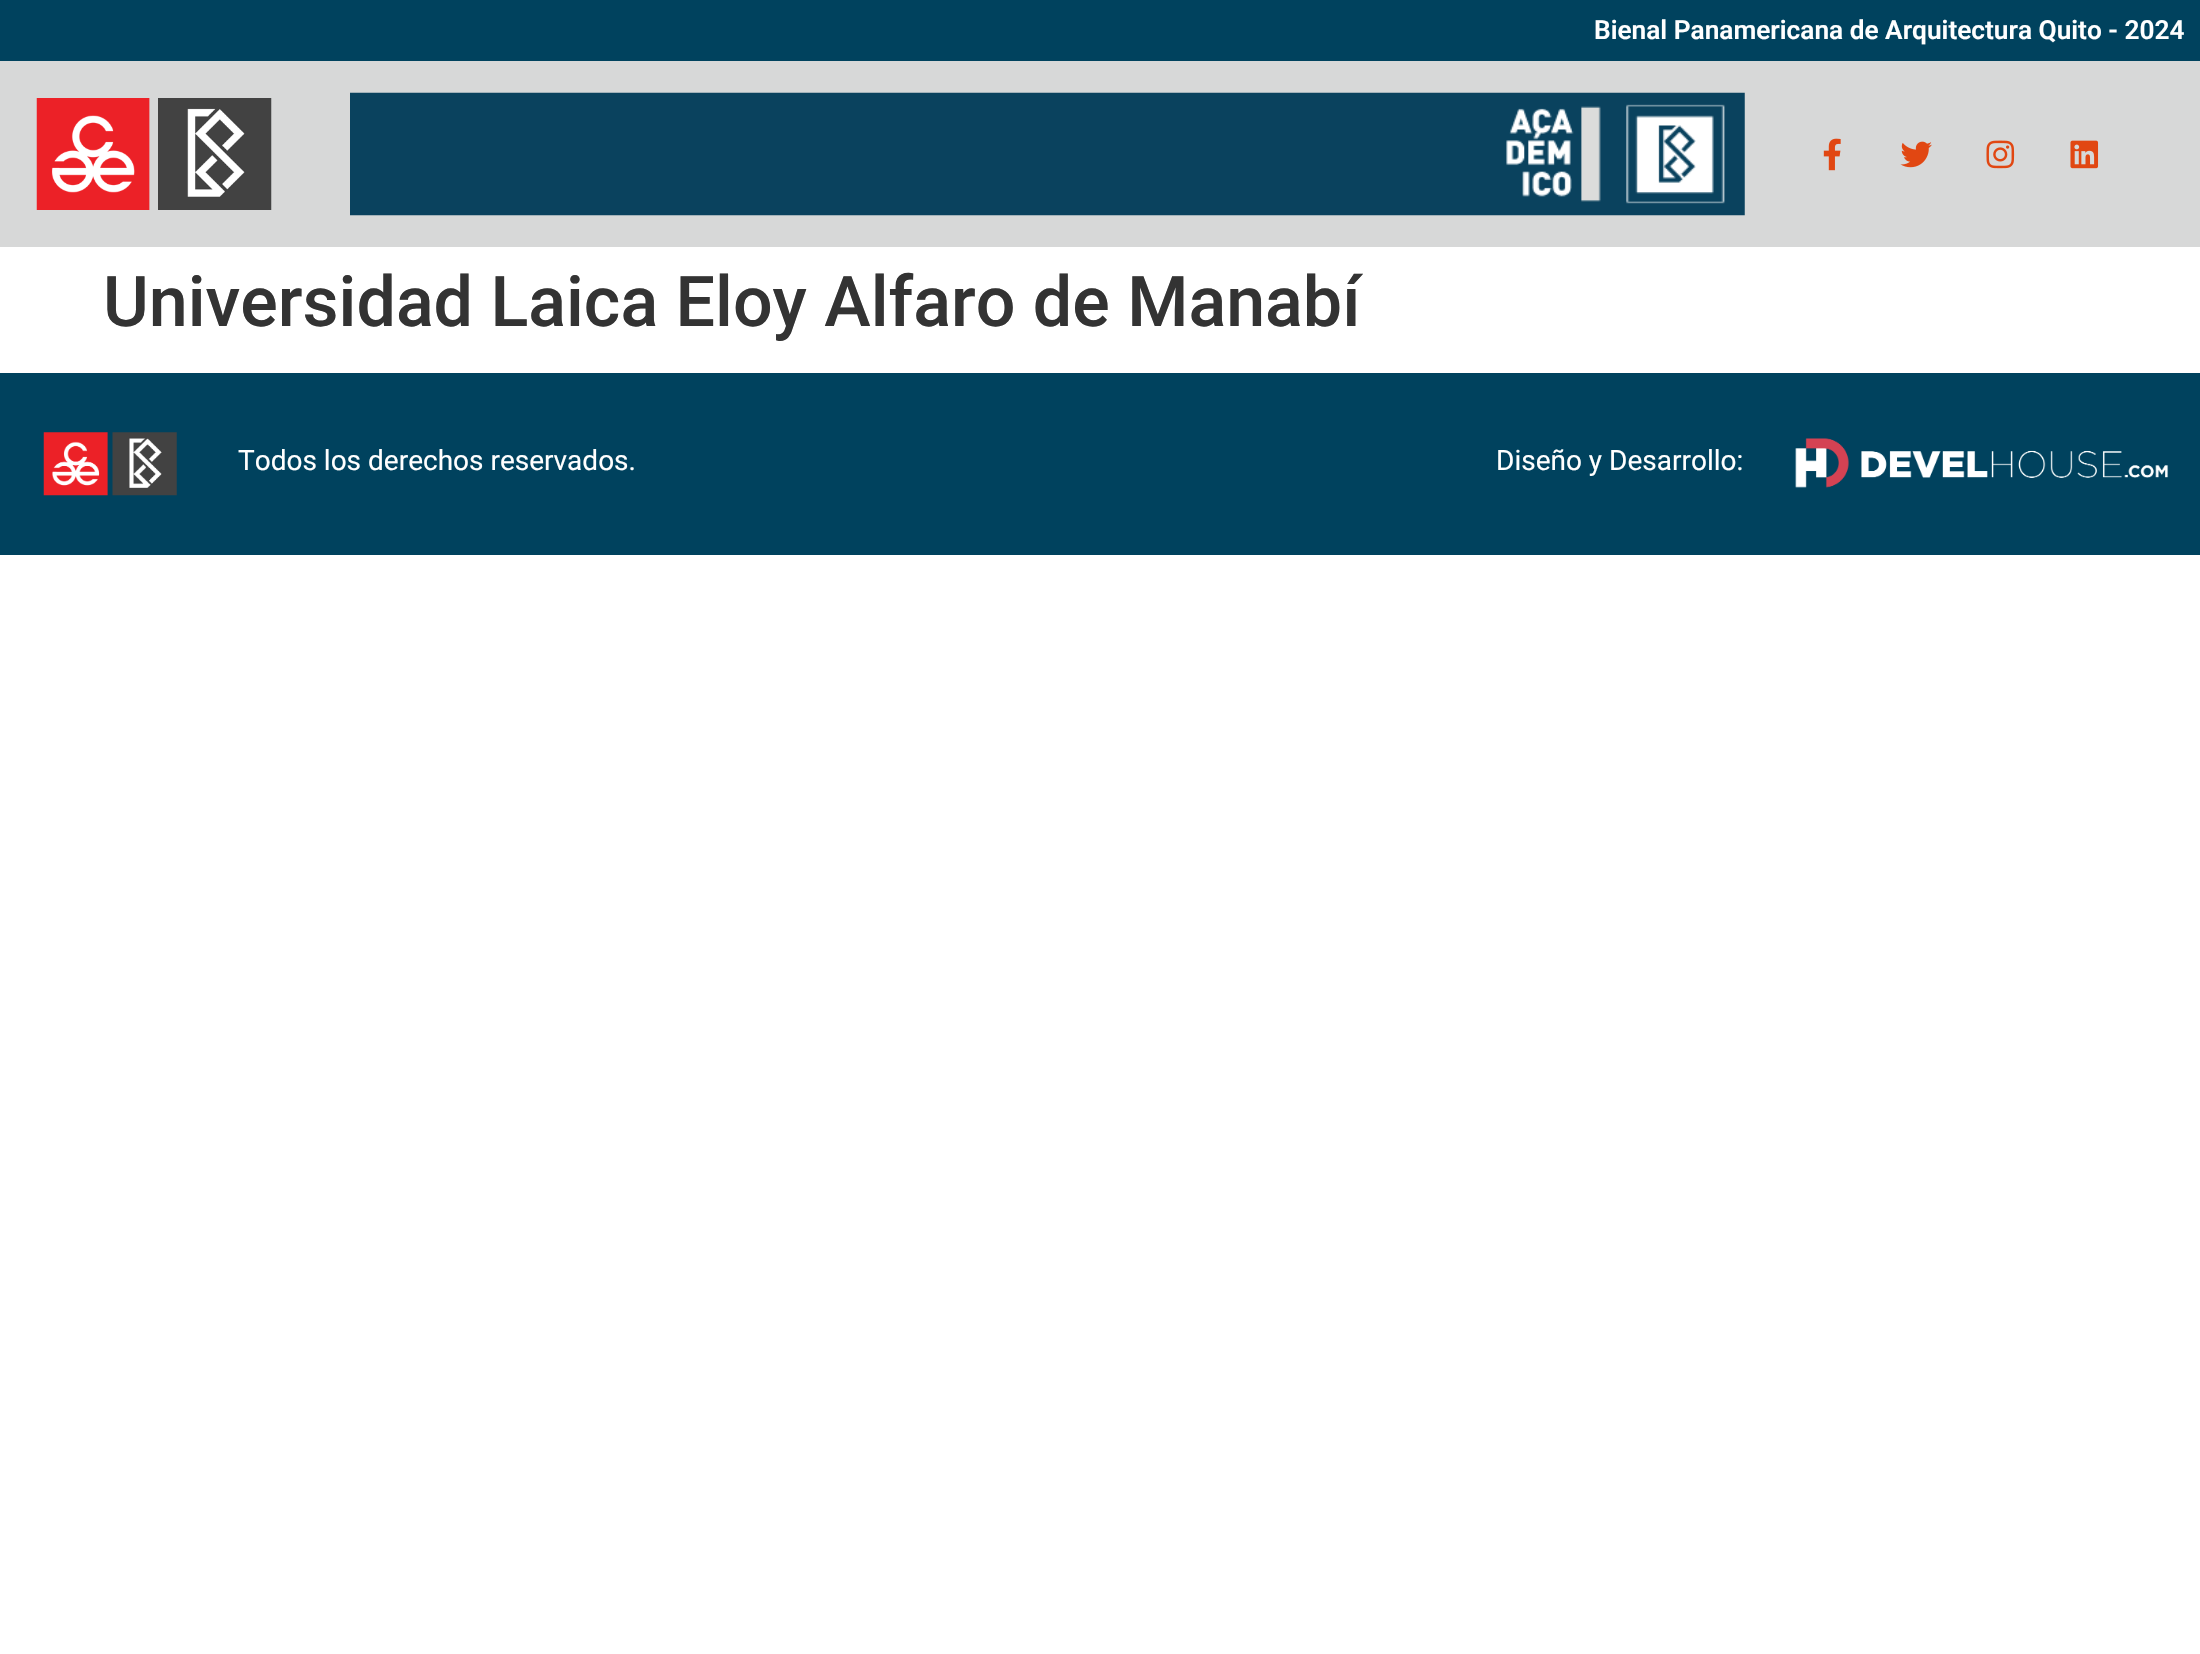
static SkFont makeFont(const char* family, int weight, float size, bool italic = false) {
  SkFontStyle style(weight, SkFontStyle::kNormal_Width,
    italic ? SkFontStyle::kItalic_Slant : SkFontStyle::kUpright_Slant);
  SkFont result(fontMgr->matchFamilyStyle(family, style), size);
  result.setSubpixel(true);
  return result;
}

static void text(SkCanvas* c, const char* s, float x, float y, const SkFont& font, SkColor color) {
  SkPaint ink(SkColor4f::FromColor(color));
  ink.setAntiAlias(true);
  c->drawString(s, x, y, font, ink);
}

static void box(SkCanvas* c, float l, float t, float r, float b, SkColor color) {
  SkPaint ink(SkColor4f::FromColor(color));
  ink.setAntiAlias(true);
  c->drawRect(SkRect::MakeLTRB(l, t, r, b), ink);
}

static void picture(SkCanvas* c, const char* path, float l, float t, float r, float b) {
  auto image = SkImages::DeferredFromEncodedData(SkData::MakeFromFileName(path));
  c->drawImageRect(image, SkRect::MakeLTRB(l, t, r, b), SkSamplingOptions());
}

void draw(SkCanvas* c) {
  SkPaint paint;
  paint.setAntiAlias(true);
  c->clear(0xffffffff);
  box(c, 0, 0, 2200, 61, 0xff00425e);
  SkFont face1 = makeFont("Roboto", 600, 26.25f);
  text(c, "Bienal Panamericana de Arquitectura Quito - 2024", 1594, 39, face1, 0xffffffff);
  box(c, 0, 61, 2200, 247, 0xffd7d8d8);
  picture(c, "img_01.png", 36, 98, 272, 210);
  picture(c, "img_02.png", 350, 92, 1745, 216);
  picture(c, "img_03.png", 1823, 138, 1841, 171);
  picture(c, "img_04.png", 1900, 141, 1932, 168);
  picture(c, "img_05.png", 1986, 140, 2015, 169);
  picture(c, "img_06.png", 2070, 140, 2099, 169);
  SkFont face2 = makeFont("Roboto", 500, 70);
  text(c, "Universidad Laica Eloy Alfaro de Manabí", 103, 326, face2, 0xff333333);
  box(c, 0, 373, 2200, 555, 0xff00425e);
  picture(c, "img_07.png", 43, 432, 177, 496);
  SkFont face3 = makeFont("Roboto", 400, 28);
  text(c, "Todos los derechos reservados.", 238, 470, face3, 0xffffffff);
  text(c, "Diseño y Desarrollo:", 1496, 470, face3, 0xffffffff);
  picture(c, "img_08.png", 1795, 438, 2169, 488);
}
